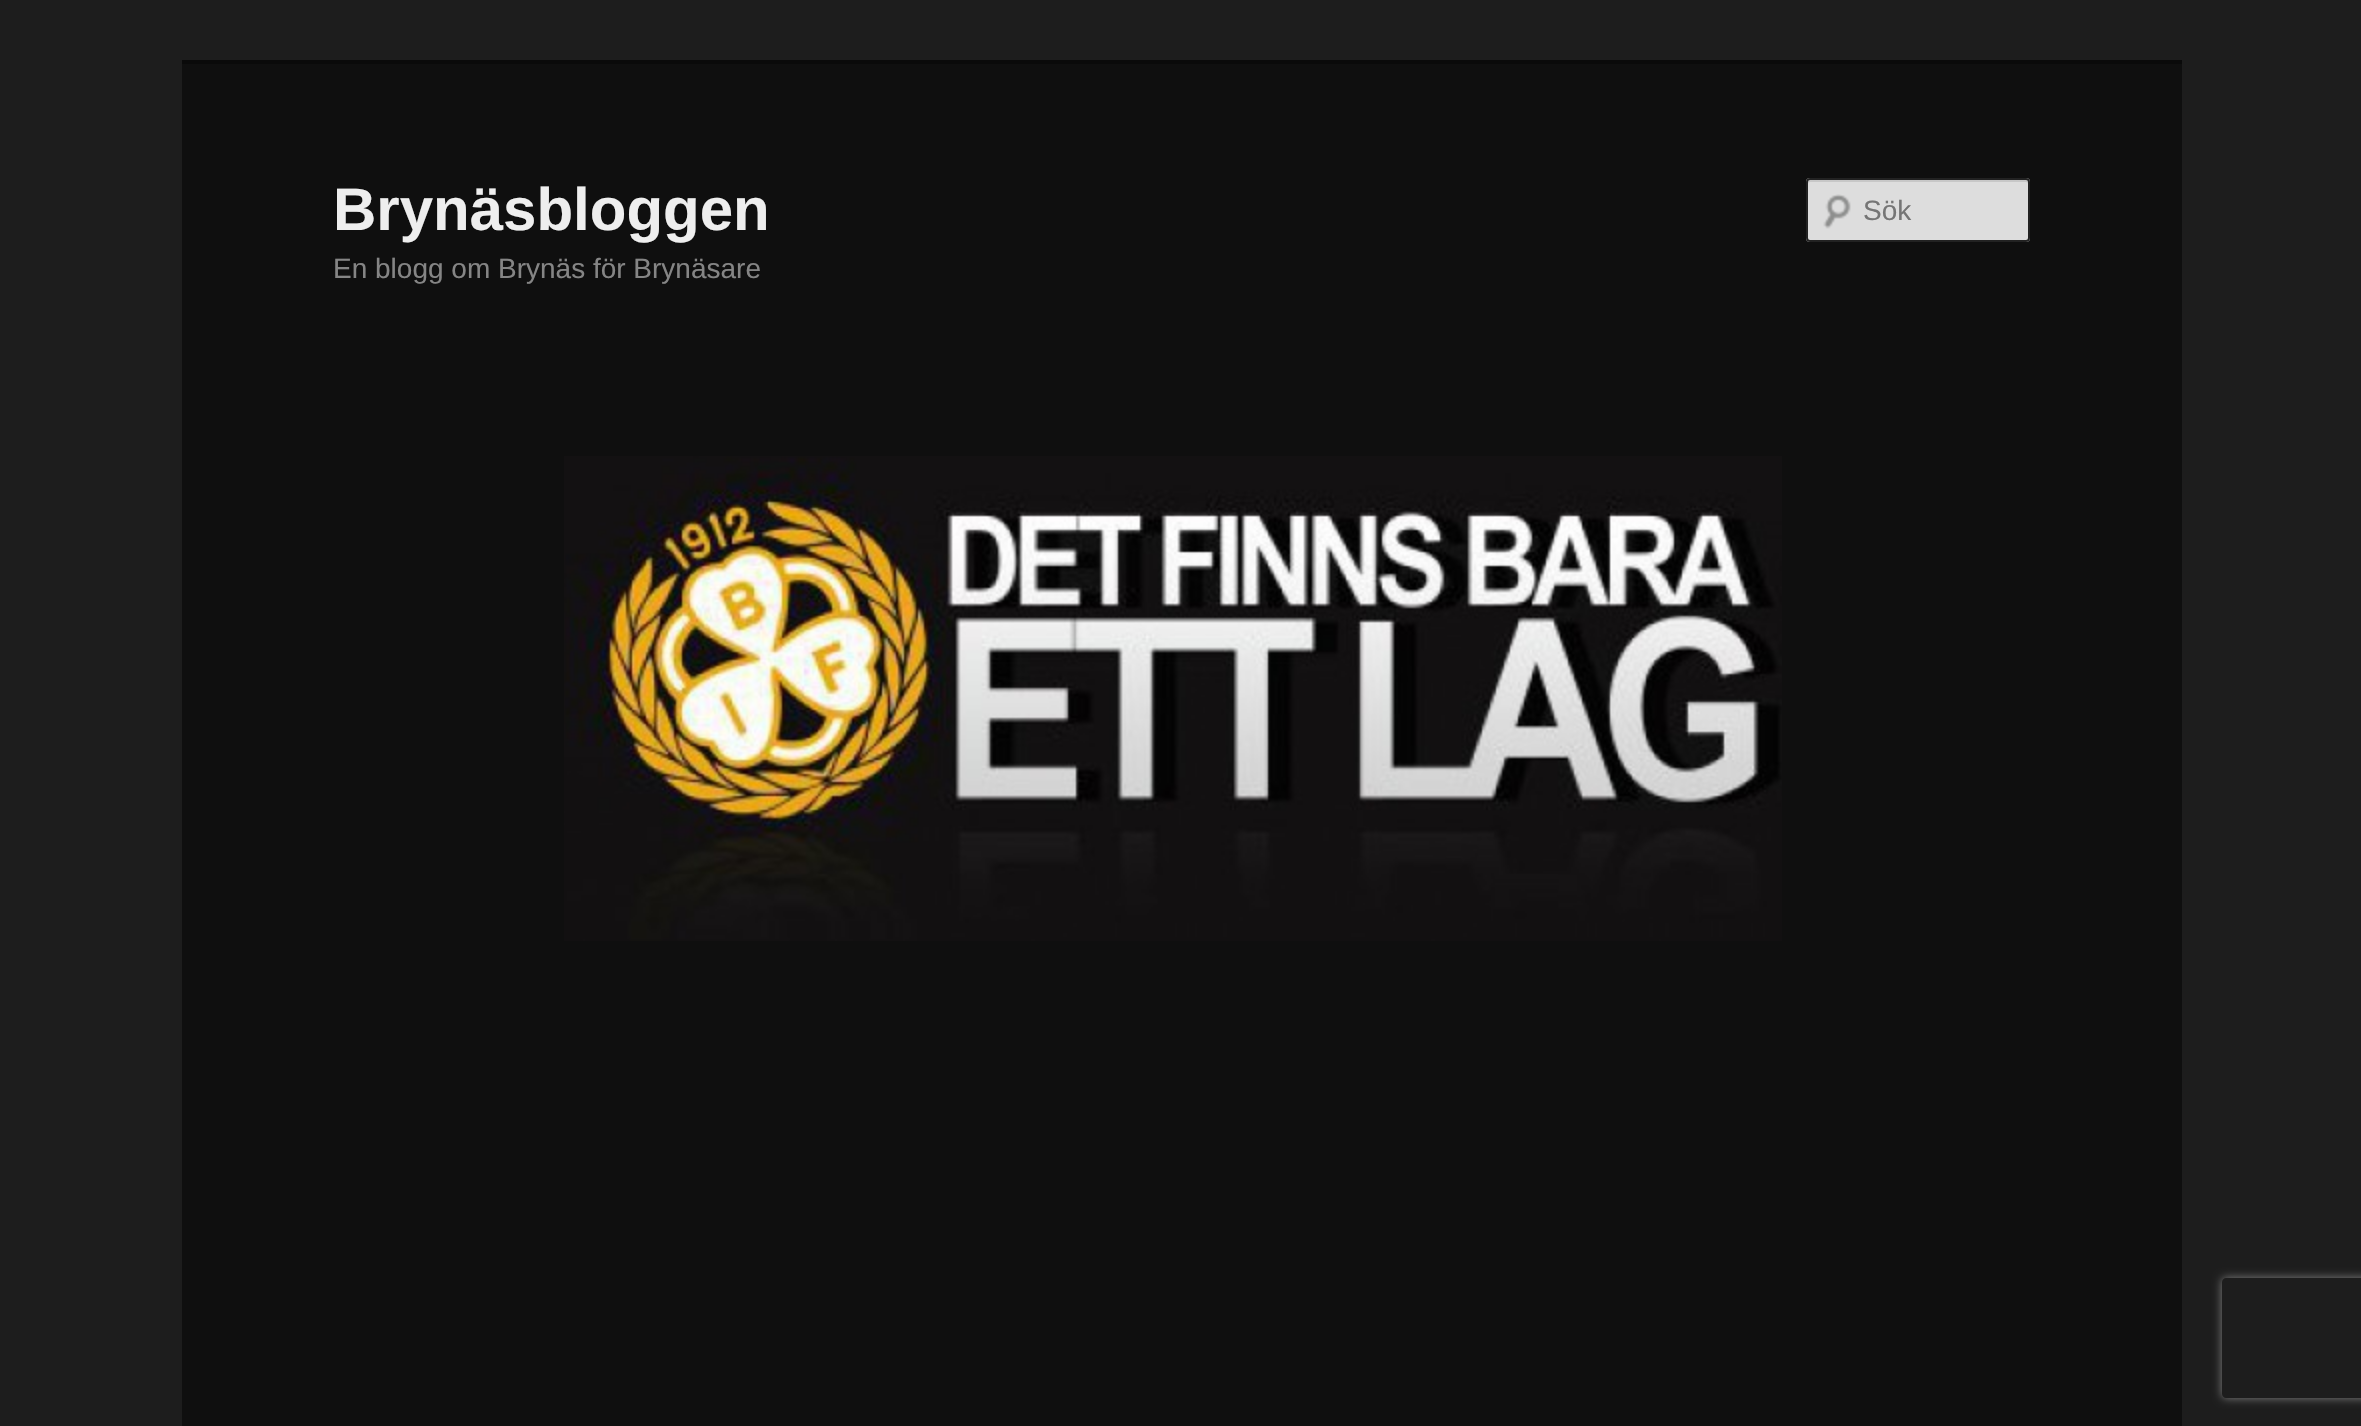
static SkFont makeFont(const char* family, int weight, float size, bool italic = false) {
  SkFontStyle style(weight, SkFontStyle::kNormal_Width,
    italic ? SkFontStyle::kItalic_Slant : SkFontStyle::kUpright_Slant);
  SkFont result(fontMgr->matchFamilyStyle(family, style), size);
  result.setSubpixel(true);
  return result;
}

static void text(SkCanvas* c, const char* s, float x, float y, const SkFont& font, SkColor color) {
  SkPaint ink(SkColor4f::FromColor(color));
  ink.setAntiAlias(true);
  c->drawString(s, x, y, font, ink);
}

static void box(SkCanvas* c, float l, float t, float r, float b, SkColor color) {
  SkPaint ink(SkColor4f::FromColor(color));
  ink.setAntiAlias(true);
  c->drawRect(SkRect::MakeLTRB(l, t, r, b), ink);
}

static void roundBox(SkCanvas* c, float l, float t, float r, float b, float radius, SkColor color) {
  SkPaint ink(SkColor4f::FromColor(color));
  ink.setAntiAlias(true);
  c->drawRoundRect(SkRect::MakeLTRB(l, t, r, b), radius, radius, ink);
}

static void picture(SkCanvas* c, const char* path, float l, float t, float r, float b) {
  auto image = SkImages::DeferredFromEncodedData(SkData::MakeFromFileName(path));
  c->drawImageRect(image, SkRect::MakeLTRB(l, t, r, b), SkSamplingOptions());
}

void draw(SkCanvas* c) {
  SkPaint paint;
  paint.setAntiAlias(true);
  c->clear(0xff1d1d1d);
  box(c, 182, 64, 2182, 1426, 0xff0f0f0f);
  box(c, 182, 60, 2182, 64, 0xff0a0a0a);
  SkFont face1 = makeFont("Liberation Sans", 700, 60);
  text(c, "Brynäsbloggen", 333, 230, face1, 0xffeeeeee);
  SkFont face2 = makeFont("Liberation Sans", 400, 28);
  text(c, "En blogg om Brynäs för Brynäsare", 333, 278, face2, 0xff858585);
  roundBox(c, 1806, 178, 2030, 242, 4, 0xffdddddd);
  picture(c, "img_01.png", 1823, 194, 1851, 229);
  paint.setColor(0xffc7c7c7);
  c->drawPath(SkPathBuilder().moveTo(1810, 182).lineTo(2026, 182).cubicTo(2027, 182, 2028, 183, 2028, 184).lineTo(2028, 182).cubicTo(2028, 181, 2027, 180, 2026, 180).lineTo(1810, 180).cubicTo(1809, 180, 1808, 181, 1808, 182).lineTo(1808, 184).cubicTo(1808, 183, 1809, 182, 1810, 182).close().detach(), paint);
  paint.setStyle(SkPaint::kStroke_Style);
  paint.setStrokeWidth(2);
  paint.setColor(0xff222222);
  c->drawRoundRect(SkRect::MakeLTRB(1807, 179, 2029, 241), 3, 3, paint);
  text(c, "Sök", 1863, 220, face2, 0xff757575);
  picture(c, "img_02.png", 564, 456, 1782, 941);
  c->save();
  c->clipPath(SkPathBuilder(SkPathFillType::kEvenOdd).moveTo(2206, 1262).lineTo(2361, 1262).lineTo(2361, 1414).lineTo(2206, 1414).close().moveTo(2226, 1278).lineTo(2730, 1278).cubicTo(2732, 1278, 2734, 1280, 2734, 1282).lineTo(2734, 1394).cubicTo(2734, 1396, 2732, 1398, 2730, 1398).lineTo(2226, 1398).cubicTo(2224, 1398, 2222, 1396, 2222, 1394).lineTo(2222, 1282).cubicTo(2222, 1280, 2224, 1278, 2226, 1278).close().detach(), true);
  paint.setStyle(SkPaint::kFill_Style);
  paint.setColor(0xff808080);
  paint.setMaskFilter(SkMaskFilter::MakeBlur(kNormal_SkBlurStyle, 5));
  c->drawRoundRect(SkRect::MakeLTRB(2222, 1278, 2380, 1398), 4, 4, paint);
  paint.setMaskFilter(nullptr);
  c->restore();
}
